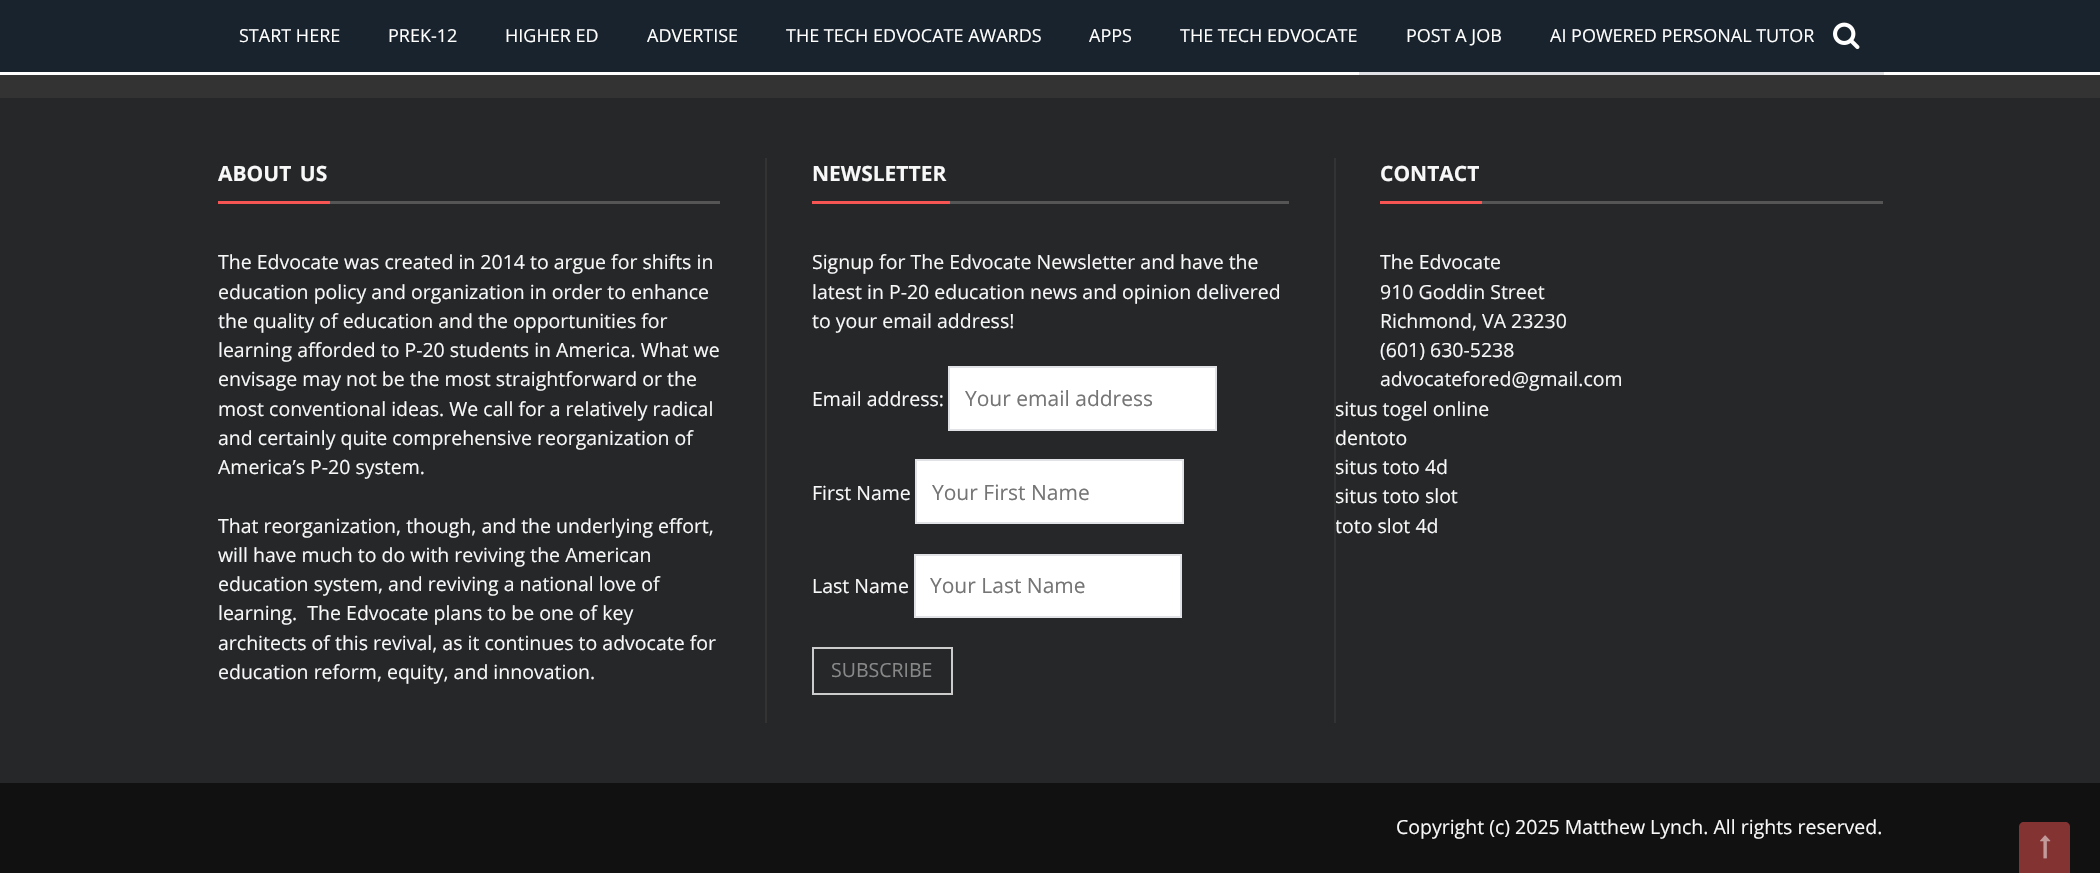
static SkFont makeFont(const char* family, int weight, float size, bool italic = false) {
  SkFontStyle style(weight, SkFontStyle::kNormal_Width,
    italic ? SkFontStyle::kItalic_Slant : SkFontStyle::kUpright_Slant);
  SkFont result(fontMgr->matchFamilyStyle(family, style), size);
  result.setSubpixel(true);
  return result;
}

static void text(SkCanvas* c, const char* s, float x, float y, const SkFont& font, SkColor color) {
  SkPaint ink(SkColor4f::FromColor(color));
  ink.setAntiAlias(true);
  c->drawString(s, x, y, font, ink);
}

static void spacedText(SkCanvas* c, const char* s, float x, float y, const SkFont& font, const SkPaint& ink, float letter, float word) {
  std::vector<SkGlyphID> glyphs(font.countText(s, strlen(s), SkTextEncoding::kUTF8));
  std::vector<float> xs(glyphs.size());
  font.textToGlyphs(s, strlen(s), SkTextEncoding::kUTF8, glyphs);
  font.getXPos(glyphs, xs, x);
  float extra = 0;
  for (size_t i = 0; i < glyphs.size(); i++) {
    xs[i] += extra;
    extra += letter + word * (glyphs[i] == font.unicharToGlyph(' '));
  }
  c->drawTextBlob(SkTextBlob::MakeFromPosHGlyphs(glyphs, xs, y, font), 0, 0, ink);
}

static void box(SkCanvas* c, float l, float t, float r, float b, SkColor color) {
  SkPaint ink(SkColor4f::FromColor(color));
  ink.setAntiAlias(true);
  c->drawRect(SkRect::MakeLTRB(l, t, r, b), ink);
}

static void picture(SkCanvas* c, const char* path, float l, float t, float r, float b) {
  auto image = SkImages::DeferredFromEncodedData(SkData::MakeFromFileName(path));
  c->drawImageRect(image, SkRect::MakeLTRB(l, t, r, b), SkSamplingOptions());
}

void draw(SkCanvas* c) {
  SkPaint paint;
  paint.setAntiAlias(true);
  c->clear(0xffffffff);
  box(c, 0, 0, 2100, 72, 0xff19232d);
  picture(c, "img_01.png", 1833, 22, 1860, 50);
  box(c, 1359, 72, 1884, 75, 0xffe0e2e6);
  SkFont face1 = makeFont("Open Sans", 400, 18);
  text(c, "START HERE", 239, 42, face1, 0xffffffff);
  text(c, "PREK-12", 388, 42, face1, 0xffffffff);
  text(c, "HIGHER ED", 505, 42, face1, 0xffffffff);
  text(c, "ADVERTISE", 647, 42, face1, 0xffffffff);
  text(c, "THE TECH EDVOCATE AWARDS", 786, 42, face1, 0xffffffff);
  text(c, "APPS", 1089, 42, face1, 0xffffffff);
  text(c, "THE TECH EDVOCATE", 1180, 42, face1, 0xffffffff);
  text(c, "POST A JOB", 1406, 42, face1, 0xffffffff);
  text(c, "AI POWERED PERSONAL TUTOR", 1550, 42, face1, 0xffffffff);
  box(c, 0, 98, 2100, 783, 0xff252729);
  box(c, 0, 75, 2100, 98, 0xff333333);
  box(c, 218, 201, 330, 204, 0xfff75454);
  SkFont face2 = makeFont("Open Sans", 700, 21);
  paint.setColor(0xfff8f8f8);
  spacedText(c, "ABOUT US", 218, 181, face2, paint, 0, 3);
  box(c, 330, 201, 720, 204, 0xff555555);
  SkFont face3 = makeFont("Open Sans", 400, 19.5f);
  text(c, "The Edvocate was created in 2014 to argue for shifts in", 218, 269, face3, 0xfff8f8f8);
  text(c, "education policy and organization in order to enhance", 218, 299, face3, 0xfff8f8f8);
  text(c, "the quality of education and the opportunities for", 218, 328, face3, 0xfff8f8f8);
  text(c, "learning afforded to P-20 students in America. What we", 218, 357, face3, 0xfff8f8f8);
  text(c, "envisage may not be the most straightforward or the", 218, 386, face3, 0xfff8f8f8);
  text(c, "most conventional ideas. We call for a relatively radical", 218, 416, face3, 0xfff8f8f8);
  text(c, "and certainly quite comprehensive reorganization of", 218, 445, face3, 0xfff8f8f8);
  text(c, "America’s P-20 system.", 218, 474, face3, 0xfff8f8f8);
  text(c, "That reorganization, though, and the underlying effort,", 218, 533, face3, 0xfff8f8f8);
  text(c, "will have much to do with reviving the American", 218, 562, face3, 0xfff8f8f8);
  text(c, "education system, and reviving a national love of", 218, 591, face3, 0xfff8f8f8);
  text(c, "learning.  The Edvocate plans to be one of key", 218, 620, face3, 0xfff8f8f8);
  text(c, "architects of this revival, as it continues to advocate for", 218, 650, face3, 0xfff8f8f8);
  text(c, "education reform, equity, and innovation.", 218, 679, face3, 0xfff8f8f8);
  text(c, "situs togel online", 1335, 416, face3, 0xfff8f8f8);
  text(c, "situs toto 4d", 1335, 474, face3, 0xfff8f8f8);
  text(c, "situs toto slot", 1335, 503, face3, 0xfff8f8f8);
  text(c, "toto slot 4d", 1335, 533, face3, 0xfff8f8f8);
  box(c, 1334, 158, 1336, 723, 0xff333333);
  box(c, 765, 158, 767, 723, 0xff333333);
  box(c, 812, 201, 950, 204, 0xfff75454);
  text(c, "NEWSLETTER", 812, 181, face2, 0xfff8f8f8);
  box(c, 950, 201, 1289, 204, 0xff555555);
  text(c, "Signup for The Edvocate Newsletter and have the", 812, 269, face3, 0xfff8f8f8);
  text(c, "latest in P-20 education news and opinion delivered", 812, 299, face3, 0xfff8f8f8);
  text(c, "to your email address!", 812, 328, face3, 0xfff8f8f8);
  text(c, "Email address:", 812, 406, face3, 0xfff8f8f8);
  paint.setColor(0xffffffff);
  c->drawRect(SkRect::MakeLTRB(949, 367, 1216, 430), paint);
  paint.setStyle(SkPaint::kStroke_Style);
  paint.setStrokeWidth(2);
  paint.setColor(0xffe0e2e6);
  c->drawRect(SkRect::MakeLTRB(949, 367, 1216, 430), paint);
  SkFont face4 = makeFont("Open Sans", 400, 21);
  text(c, "Your email address", 965, 406, face4, 0xff757575);
  text(c, "First Name", 812, 500, face3, 0xfff8f8f8);
  paint.setStyle(SkPaint::kFill_Style);
  paint.setColor(0xffffffff);
  c->drawRect(SkRect::MakeLTRB(916, 460, 1183, 523), paint);
  paint.setStyle(SkPaint::kStroke_Style);
  paint.setColor(0xffe0e2e6);
  c->drawRect(SkRect::MakeLTRB(916, 460, 1183, 523), paint);
  text(c, "Your First Name", 932, 500, face4, 0xff757575);
  text(c, "Last Name", 812, 593, face3, 0xfff8f8f8);
  paint.setStyle(SkPaint::kFill_Style);
  paint.setColor(0xffffffff);
  c->drawRect(SkRect::MakeLTRB(915, 555, 1181, 617), paint);
  paint.setStyle(SkPaint::kStroke_Style);
  paint.setColor(0xffe0e2e6);
  c->drawRect(SkRect::MakeLTRB(915, 555, 1181, 617), paint);
  text(c, "Your Last Name", 930, 593, face4, 0xff757575);
  paint.setColor(0xffcccccc);
  c->drawRect(SkRect::MakeLTRB(813, 648, 952, 694), paint);
  text(c, "SUBSCRIBE", 831, 677, face3, 0xff888888);
  box(c, 1380, 201, 1482, 204, 0xfff75454);
  text(c, "CONTACT", 1380, 181, face2, 0xfff8f8f8);
  box(c, 1482, 201, 1883, 204, 0xff555555);
  text(c, "The Edvocate", 1380, 269, face3, 0xfff8f8f8);
  text(c, "910 Goddin Street", 1380, 299, face3, 0xfff8f8f8);
  text(c, "Richmond, VA 23230", 1380, 328, face3, 0xfff8f8f8);
  text(c, "(601) 630-5238", 1380, 357, face3, 0xfff8f8f8);
  text(c, "advocatefored@gmail.com", 1380, 386, face3, 0xfff8f8f8);
  text(c, "dentoto", 1335, 445, face3, 0xfff8f8f8);
  box(c, 0, 783, 2100, 873, 0xff111111);
  text(c, "Copyright (c) 2025 Matthew Lynch. All rights reserved.", 1396, 834, face3, 0xfff8f8f8);
  paint.setStyle(SkPaint::kFill_Style);
  paint.setColor(0xff843333);
  c->drawPath(SkPathBuilder().moveTo(2024, 822).lineTo(2065, 822).cubicTo(2068, 822, 2070, 824, 2070, 827).lineTo(2070, 873).lineTo(2019, 873).lineTo(2019, 827).cubicTo(2019, 824, 2021, 822, 2024, 822).close().detach(), paint);
  picture(c, "img_02.png", 2040, 835, 2051, 859);
}
